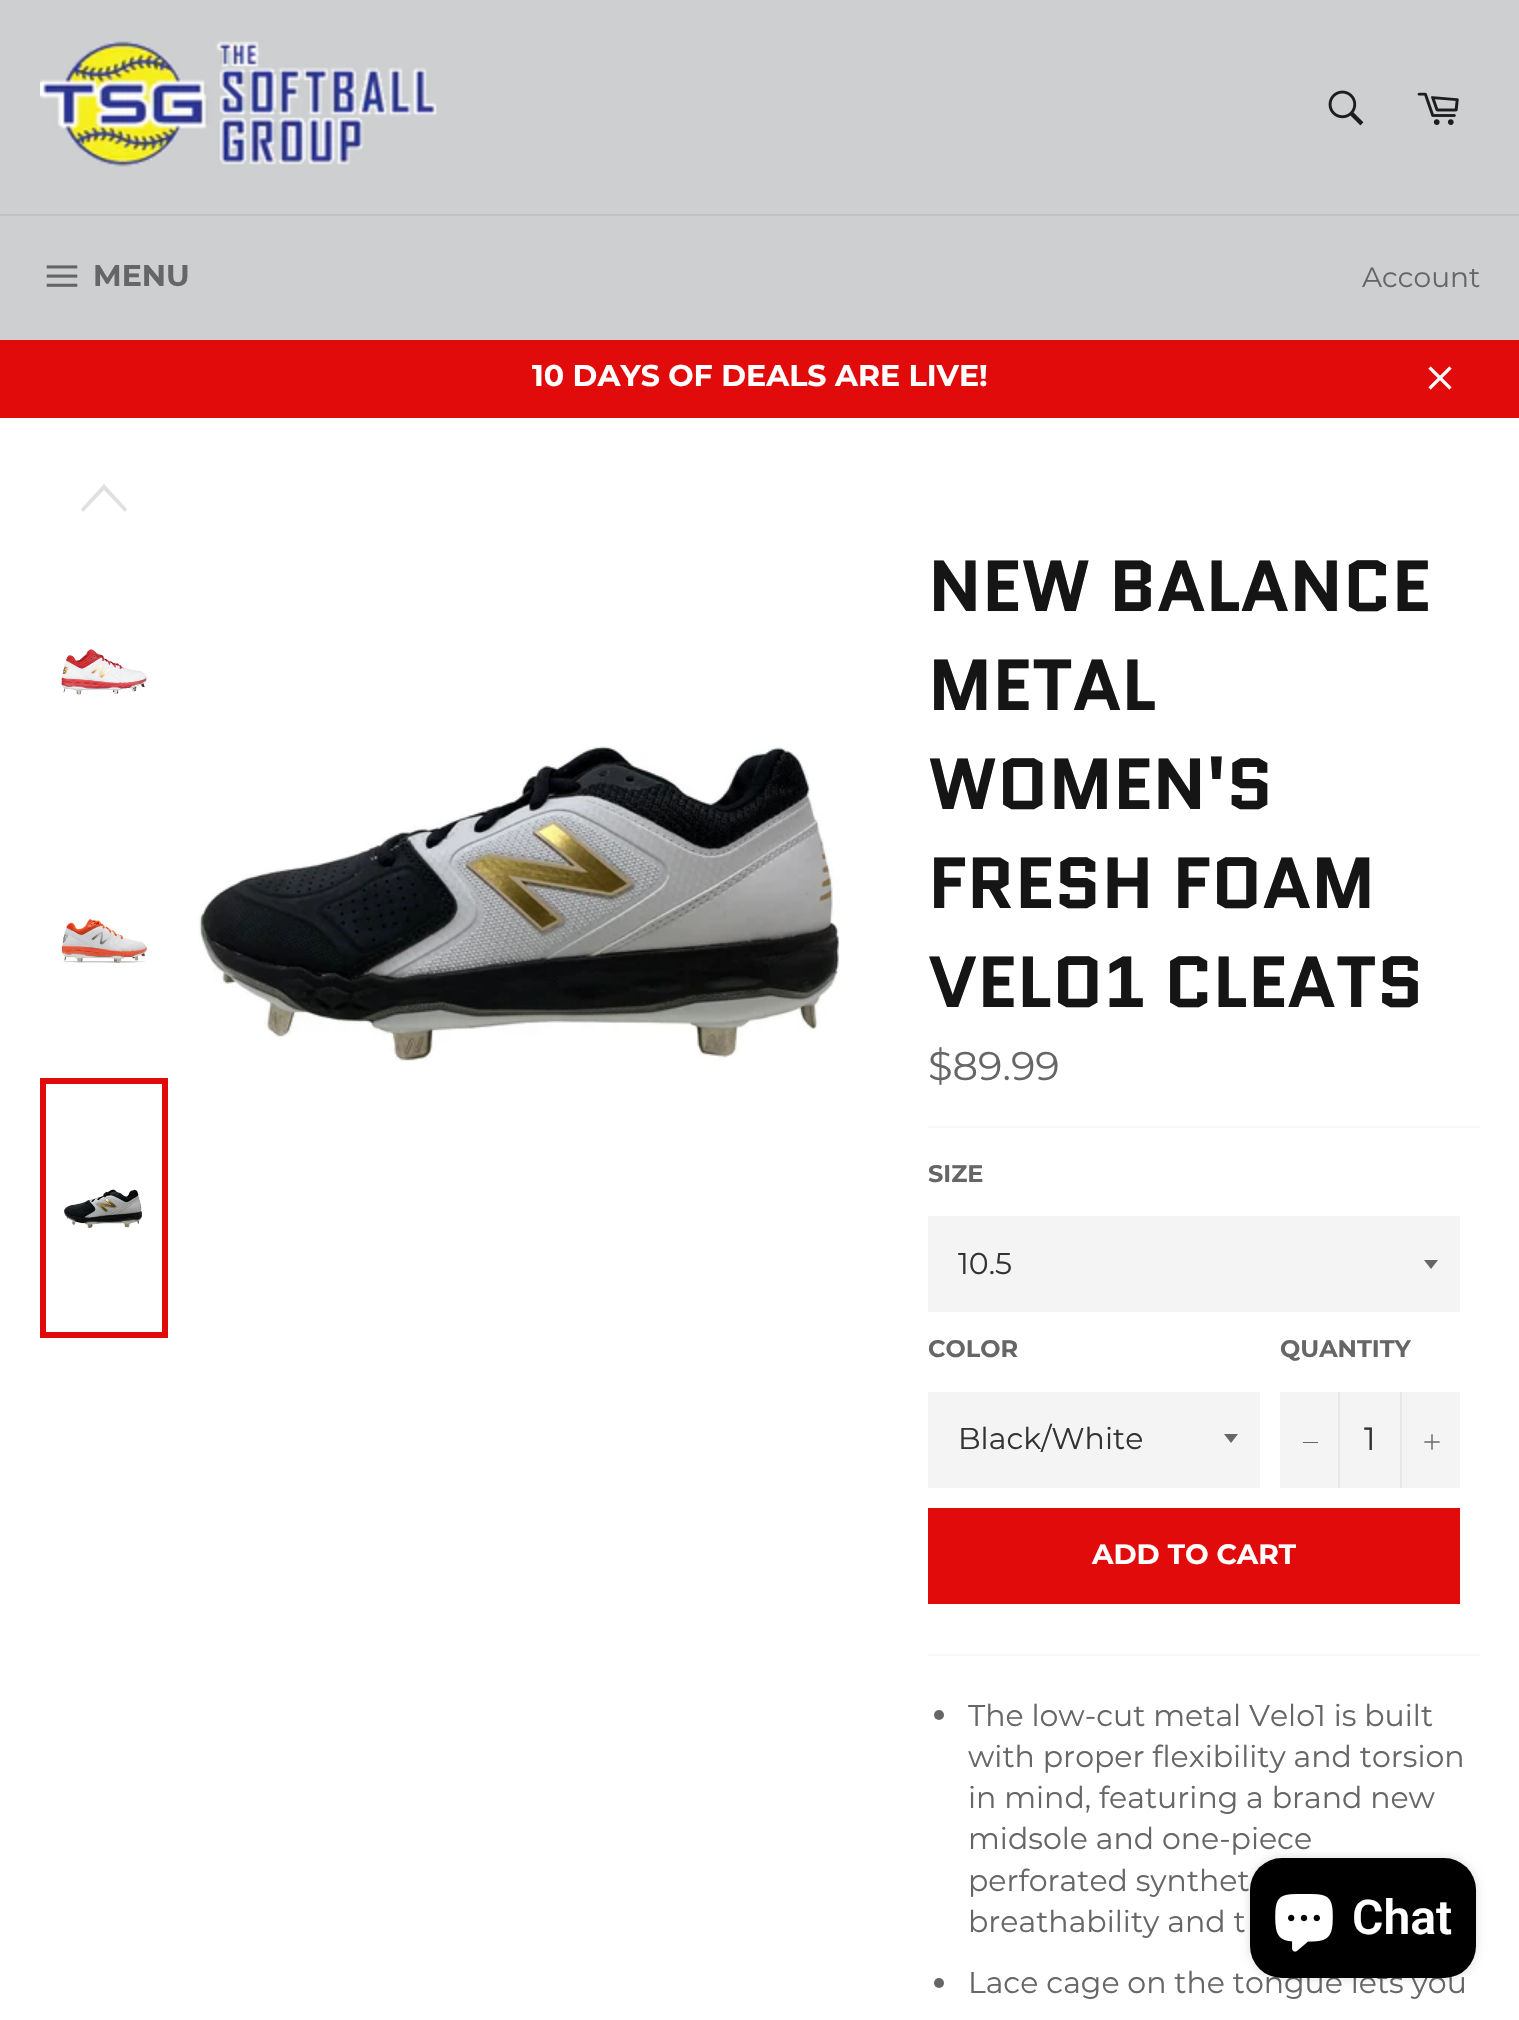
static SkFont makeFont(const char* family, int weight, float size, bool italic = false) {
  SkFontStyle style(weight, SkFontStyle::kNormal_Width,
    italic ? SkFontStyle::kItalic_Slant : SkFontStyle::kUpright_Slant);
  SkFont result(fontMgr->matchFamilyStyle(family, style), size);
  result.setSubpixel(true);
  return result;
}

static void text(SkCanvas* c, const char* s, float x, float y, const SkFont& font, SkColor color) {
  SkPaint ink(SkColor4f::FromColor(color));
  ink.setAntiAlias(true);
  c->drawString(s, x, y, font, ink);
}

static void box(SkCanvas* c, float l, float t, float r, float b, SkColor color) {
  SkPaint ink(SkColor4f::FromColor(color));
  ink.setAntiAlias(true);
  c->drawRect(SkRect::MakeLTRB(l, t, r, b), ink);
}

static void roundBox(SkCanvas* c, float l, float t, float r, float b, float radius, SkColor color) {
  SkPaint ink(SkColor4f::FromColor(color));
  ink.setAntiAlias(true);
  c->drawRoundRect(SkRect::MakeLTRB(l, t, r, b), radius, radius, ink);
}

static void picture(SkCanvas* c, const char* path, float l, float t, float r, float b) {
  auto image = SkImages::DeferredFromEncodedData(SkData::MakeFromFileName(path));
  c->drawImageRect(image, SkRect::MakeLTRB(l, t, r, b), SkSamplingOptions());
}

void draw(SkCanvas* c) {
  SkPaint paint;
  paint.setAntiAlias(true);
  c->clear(0xffcdcfd0);
  picture(c, "img_01.png", 40, 41, 437, 167);
  picture(c, "img_02.png", 1328, 90, 1364, 126);
  picture(c, "img_03.png", 1417, 92, 1459, 125);
  box(c, 0, 214, 1519, 216, 0xffc0c2c4);
  picture(c, "img_04.png", 46, 265, 78, 287);
  SkFont face1 = makeFont("Montserrat", 700, 30);
  text(c, "MENU", 93, 286, face1, 0xff666666);
  SkFont face2 = makeFont("Montserrat", 400, 28);
  text(c, "Account", 1362, 287, face2, 0xff666666);
  box(c, 0, 340, 1519, 418, 0xffe10b0b);
  text(c, "10 DAYS OF DEALS ARE LIVE!", 532, 386, face1, 0xffffffff);
  picture(c, "img_05.png", 1428, 366, 1452, 390);
  box(c, 0, 418, 1519, 2020, 0xffffffff);
  paint.setColor(0xffe0e0e0);
  c->drawPath(SkPathBuilder().moveTo(125, 512).lineTo(127, 509).lineTo(104, 484).lineTo(81, 509).lineTo(83, 512).lineTo(104, 490).close().detach(), paint);
  picture(c, "img_06.png", 61, 649, 147, 695);
  picture(c, "img_07.png", 60, 916, 148, 964);
  picture(c, "img_08.png", 64, 1188, 142, 1228);
  paint.setStyle(SkPaint::kStroke_Style);
  paint.setStrokeWidth(6);
  paint.setColor(0xffe10b0b);
  c->drawRect(SkRect::MakeLTRB(43, 1081, 165, 1335), paint);
  picture(c, "img_09.png", 198, 746, 840, 1062);
  SkFont face3 = makeFont("Quantico", 700, 72);
  text(c, "NEW BALANCE", 928, 611, face3, 0xff151515);
  text(c, "METAL", 928, 710, face3, 0xff151515);
  text(c, "WOMEN'S", 928, 809, face3, 0xff151515);
  text(c, "FRESH FOAM", 928, 908, face3, 0xff151515);
  text(c, "VELO1 CLEATS", 928, 1007, face3, 0xff151515);
  SkFont face4 = makeFont("Montserrat", 400, 40);
  text(c, "$89.99", 928, 1080, face4, 0xff666666);
  box(c, 928, 1126, 1480, 1128, 0xfff7f7f7);
  SkFont face5 = makeFont("Montserrat", 700, 24);
  text(c, "SIZE", 928, 1182, face5, 0xff666666);
  box(c, 928, 1216, 1460, 1312, 0xfff4f4f4);
  paint.setStyle(SkPaint::kFill_Style);
  paint.setColor(0xff666666);
  c->drawPath(SkPathBuilder().moveTo(1424, 1260).lineTo(1431, 1269).lineTo(1438, 1260).close().detach(), paint);
  SkFont face6 = makeFont("Montserrat", 400, 30);
  text(c, "10.5", 958, 1274, face6, 0xff333333);
  text(c, "COLOR", 928, 1357, face5, 0xff666666);
  box(c, 928, 1392, 1260, 1488, 0xfff4f4f4);
  c->drawPath(SkPathBuilder().moveTo(1224, 1434).lineTo(1231, 1443).lineTo(1238, 1434).close().detach(), paint);
  text(c, "Black/White", 958, 1449, face6, 0xff333333);
  text(c, "QUANTITY", 1280, 1357, face5, 0xff666666);
  box(c, 1280, 1392, 1460, 1488, 0xfff4f4f4);
  box(c, 1338, 1392, 1340, 1488, 0xffe7e7e7);
  box(c, 1303, 1442, 1318, 1443, 0xff666666);
  SkFont face7 = makeFont("Montserrat", 400, 32);
  text(c, "1", 1364, 1450, face7, 0xff333333);
  box(c, 1400, 1392, 1402, 1488, 0xffe7e7e7);
  picture(c, "img_10.png", 1424, 1434, 1440, 1450);
  box(c, 928, 1508, 1460, 1604, 0xffe10b0b);
  SkFont face8 = makeFont("Montserrat", 700, 28);
  text(c, "ADD TO CART", 1092, 1564, face8, 0xffffffff);
  box(c, 928, 1654, 1480, 1656, 0xfff7f7f7);
  c->drawCircle(939, 1715, 5, paint);
  text(c, "The low-cut metal Velo1 is built", 968, 1726, face6, 0xff666666);
  text(c, "with proper flexibility and torsion", 968, 1767, face6, 0xff666666);
  text(c, "in mind, featuring a brand new", 968, 1808, face6, 0xff666666);
  text(c, "midsole and one-piece", 968, 1849, face6, 0xff666666);
  text(c, "perforated synthet", 968, 1891, face6, 0xff666666);
  text(c, "breathability and t", 968, 1932, face6, 0xff666666);
  c->drawCircle(939, 1983, 5, paint);
  text(c, "Lace cage on the tongue lets you", 968, 1993, face6, 0xff666666);
  paint.setColor(0x26000000);
  paint.setMaskFilter(SkMaskFilter::MakeBlur(kNormal_SkBlurStyle, 5));
  c->drawRoundRect(SkRect::MakeLTRB(1250, 1858, 1476, 1978), 32, 32, paint);
  paint.setMaskFilter(nullptr);
  roundBox(c, 1250, 1858, 1476, 1978, 32, 0xff000000);
  picture(c, "img_11.png", 1275, 1894, 1333, 1952);
  SkFont face9 = makeFont("Roboto", 600, 48);
  text(c, "Chat", 1352, 1934, face9, 0xffffffff);
}
